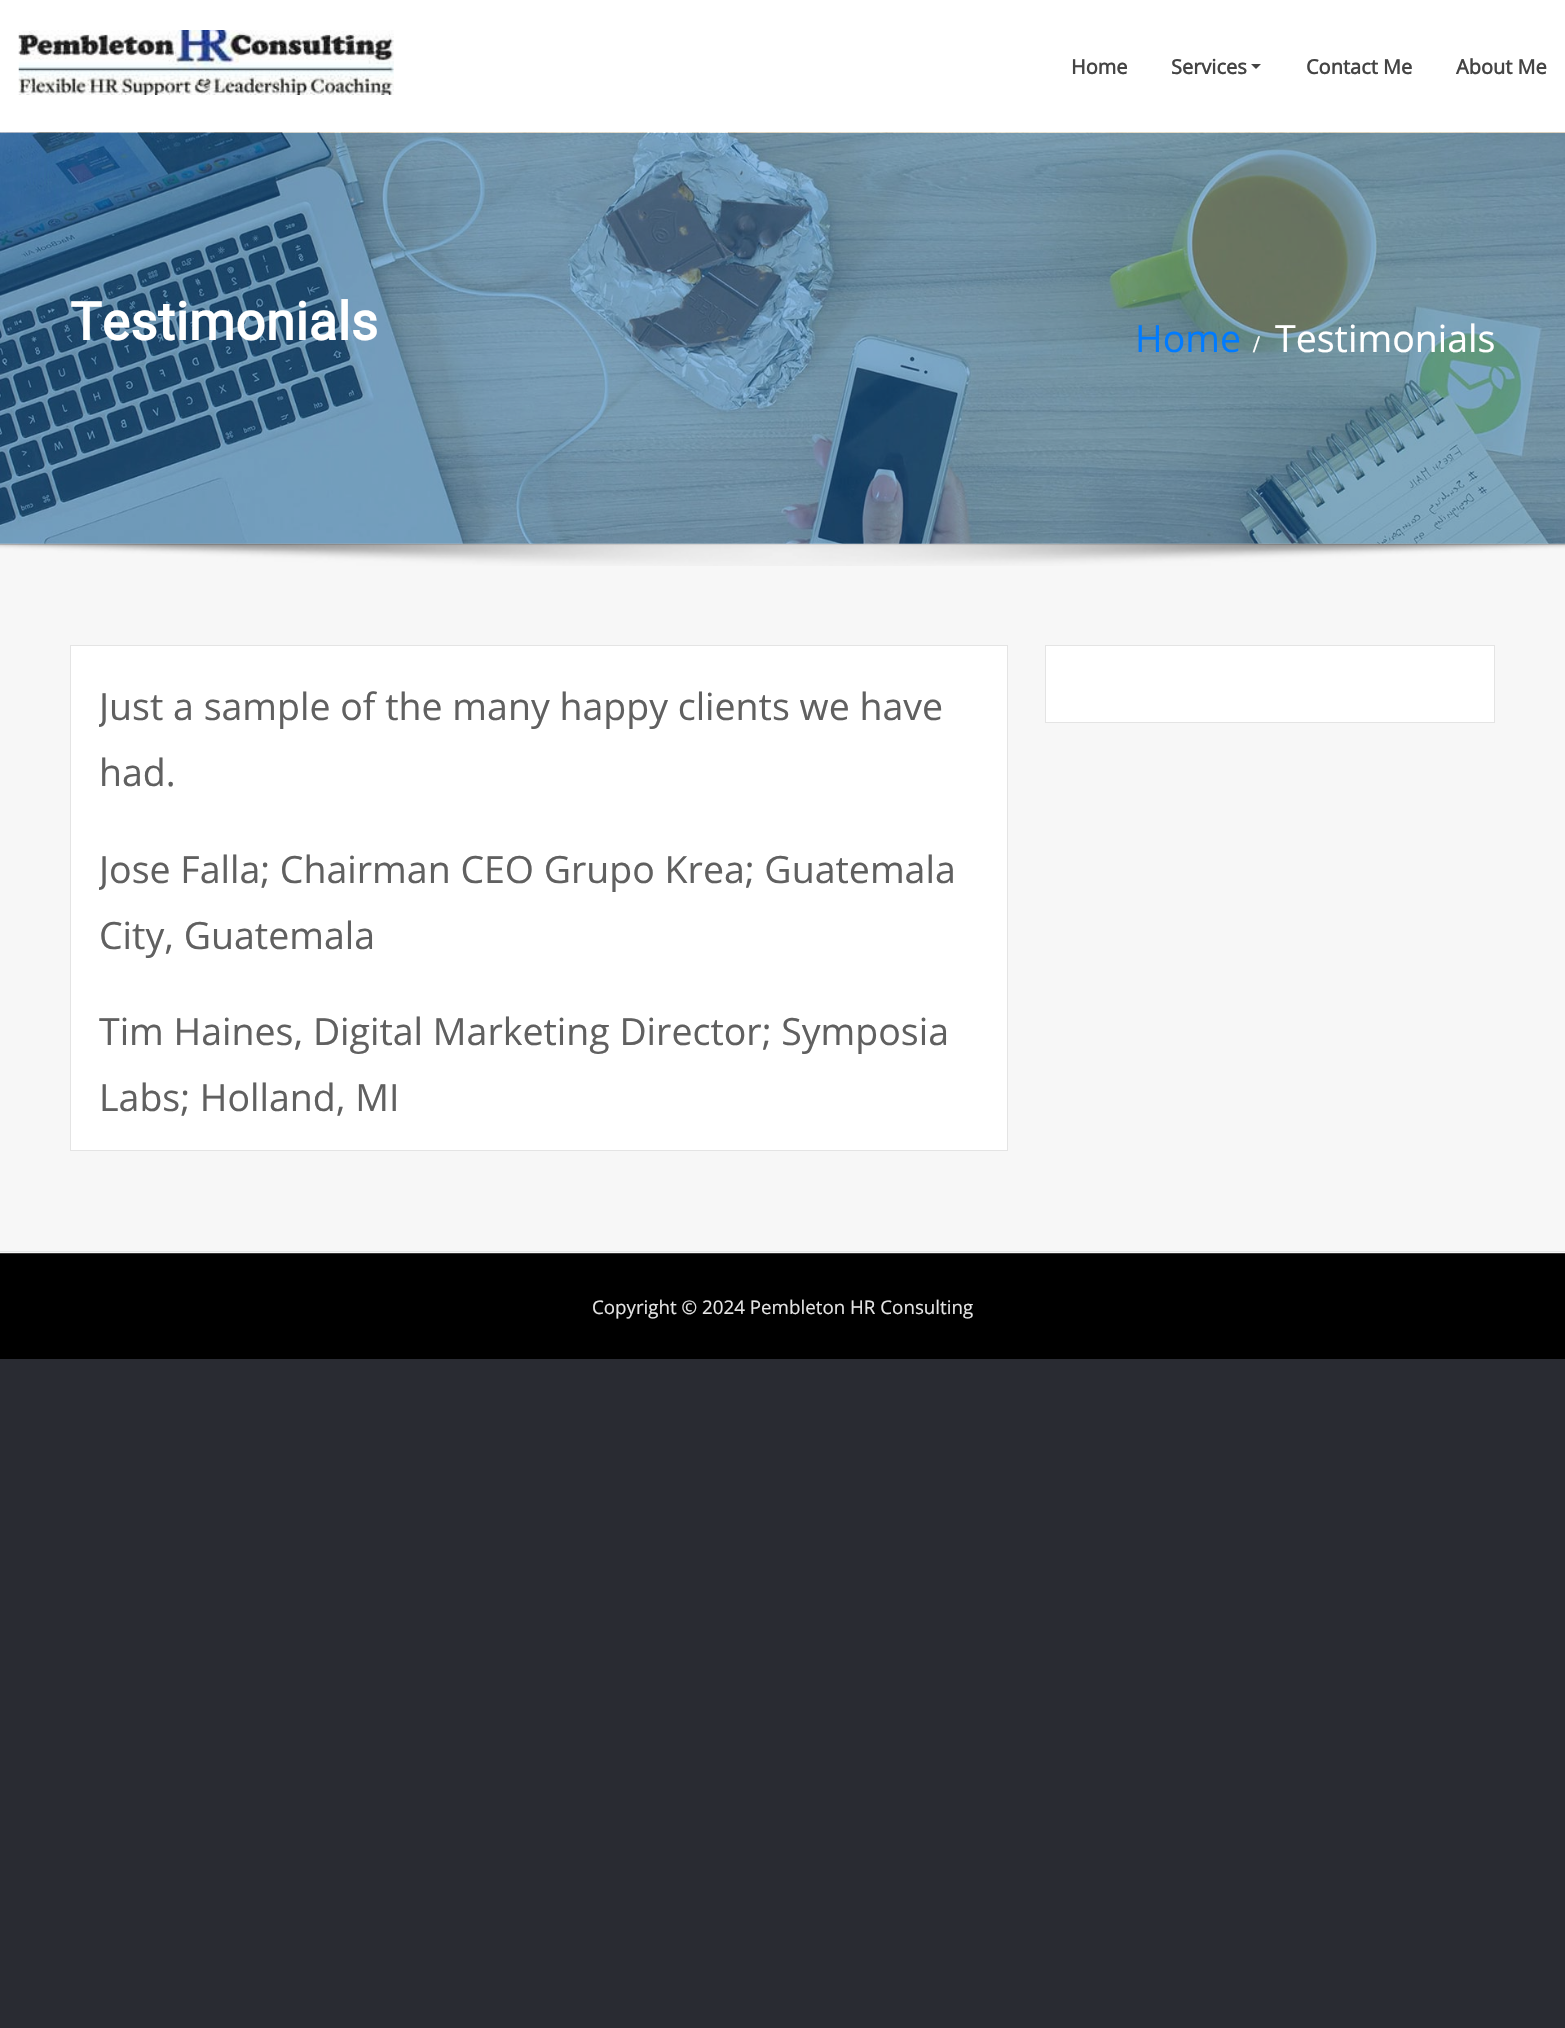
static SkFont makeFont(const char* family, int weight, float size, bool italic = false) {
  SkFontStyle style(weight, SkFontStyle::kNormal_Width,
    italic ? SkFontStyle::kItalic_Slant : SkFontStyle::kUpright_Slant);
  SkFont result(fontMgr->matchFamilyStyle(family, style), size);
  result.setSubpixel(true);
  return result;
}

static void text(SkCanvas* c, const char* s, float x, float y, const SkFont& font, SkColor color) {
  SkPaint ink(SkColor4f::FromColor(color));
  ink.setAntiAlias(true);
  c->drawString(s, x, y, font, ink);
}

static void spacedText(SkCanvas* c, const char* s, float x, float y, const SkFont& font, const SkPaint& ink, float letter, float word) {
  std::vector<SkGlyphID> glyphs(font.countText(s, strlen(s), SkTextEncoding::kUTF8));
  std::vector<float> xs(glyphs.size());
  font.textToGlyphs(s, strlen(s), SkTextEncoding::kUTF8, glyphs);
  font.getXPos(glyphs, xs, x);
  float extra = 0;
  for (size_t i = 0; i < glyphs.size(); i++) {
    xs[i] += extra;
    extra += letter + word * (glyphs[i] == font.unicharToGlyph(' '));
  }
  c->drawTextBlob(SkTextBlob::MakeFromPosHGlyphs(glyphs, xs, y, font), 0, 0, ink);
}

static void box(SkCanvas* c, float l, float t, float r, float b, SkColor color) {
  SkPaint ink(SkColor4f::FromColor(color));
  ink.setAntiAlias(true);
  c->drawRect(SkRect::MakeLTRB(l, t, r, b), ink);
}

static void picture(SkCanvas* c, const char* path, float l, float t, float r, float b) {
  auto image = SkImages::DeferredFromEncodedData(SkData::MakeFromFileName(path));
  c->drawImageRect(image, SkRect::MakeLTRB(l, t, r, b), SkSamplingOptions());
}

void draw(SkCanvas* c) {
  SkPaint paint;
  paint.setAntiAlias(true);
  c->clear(0xff292b32);
  box(c, 0, 0, 1565, 544, 0xffffffff);
  picture(c, "img_01.png", 18, 30, 394, 95);
  SkFont face1 = makeFont("Open Sans", 700, 20);
  text(c, "Home", 1071, 74, face1, 0xff444444);
  text(c, "Services", 1171, 74, face1, 0xff444444);
  paint.setColor(0xff444444);
  c->drawPath(SkPathBuilder().moveTo(1251, 64).lineTo(1261, 64).lineTo(1256, 69).close().detach(), paint);
  text(c, "Contact Me", 1306, 74, face1, 0xff444444);
  text(c, "About Me", 1456, 74, face1, 0xff444444);
  picture(c, "img_02.png", 0, 132, 1565, 544);
  SkFont face2 = makeFont("Roboto", 700, 52.5f);
  paint.setColor(0xffffffff);
  spacedText(c, "Testimonials", 70, 340, face2, paint, 0.5f, 0);
  SkFont face3 = makeFont("Open Sans", 400, 37.5f);
  text(c, "Home", 1135, 352, face3, 0xff007bff);
  SkFont face4 = makeFont("Liberation Serif", 700, 24);
  spacedText(c, "/", 1253, 352, face4, paint, 2, 0);
  text(c, "Testimonials", 1275, 352, face3, 0xffffffff);
  box(c, 0, 545, 1565, 1253, 0xfff7f7f7);
  box(c, 0, 544, 1565, 545, 0xffe4e4e4);
  picture(c, "img_03.png", 0, 543, 1565, 566);
  box(c, 0, 1251, 1565, 1252, 0xffe4e4e4);
  c->drawRect(SkRect::MakeLTRB(70.5f, 645.5f, 1007.5f, 1150.5f), paint);
  paint.setStyle(SkPaint::kStroke_Style);
  paint.setStrokeWidth(1);
  paint.setColor(0xffe4e4e4);
  c->drawRect(SkRect::MakeLTRB(70.5f, 645.5f, 1007.5f, 1150.5f), paint);
  c->save();
  c->clipRect(SkRect::MakeLTRB(99, 674, 979, 1130));
  text(c, "Just a sample of the many happy clients we have", 99, 720, face3, 0xff606060);
  c->restore();
  text(c, "had.", 99, 786, face3, 0xff606060);
  c->save();
  c->clipRect(SkRect::MakeLTRB(99, 674, 979, 1130));
  text(c, "Jose Falla; Chairman CEO Grupo Krea; Guatemala", 99, 883, face3, 0xff606060);
  c->restore();
  text(c, "City, Guatemala", 99, 949, face3, 0xff606060);
  text(c, "Tim Haines, Digital Marketing Director; Symposia", 99, 1045, face3, 0xff606060);
  text(c, "Labs; Holland, MI", 99, 1111, face3, 0xff606060);
  paint.setStyle(SkPaint::kFill_Style);
  paint.setColor(0xffffffff);
  c->drawRect(SkRect::MakeLTRB(1045.5f, 645.5f, 1494.5f, 722.5f), paint);
  paint.setStyle(SkPaint::kStroke_Style);
  paint.setColor(0xffe4e4e4);
  c->drawRect(SkRect::MakeLTRB(1045.5f, 645.5f, 1494.5f, 722.5f), paint);
  box(c, 0, 1254, 1565, 1359, 0xff000000);
  box(c, 0, 1253, 1565, 1254, 0xff363535);
  SkFont face5 = makeFont("Open Sans", 400, 18.75f);
  text(c, "Copyright © 2024 Pembleton HR Consulting", 592, 1314, face5, 0xffe5e5e5);
}
